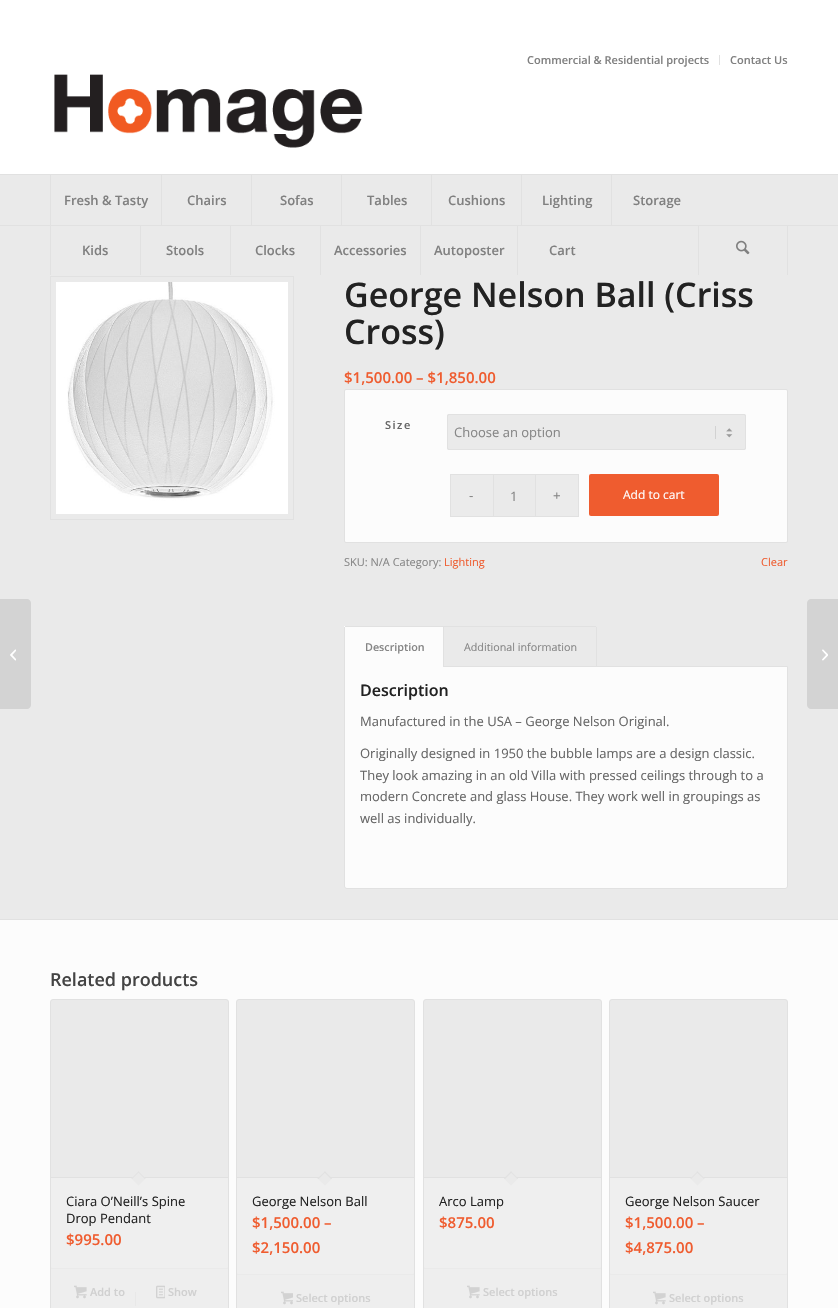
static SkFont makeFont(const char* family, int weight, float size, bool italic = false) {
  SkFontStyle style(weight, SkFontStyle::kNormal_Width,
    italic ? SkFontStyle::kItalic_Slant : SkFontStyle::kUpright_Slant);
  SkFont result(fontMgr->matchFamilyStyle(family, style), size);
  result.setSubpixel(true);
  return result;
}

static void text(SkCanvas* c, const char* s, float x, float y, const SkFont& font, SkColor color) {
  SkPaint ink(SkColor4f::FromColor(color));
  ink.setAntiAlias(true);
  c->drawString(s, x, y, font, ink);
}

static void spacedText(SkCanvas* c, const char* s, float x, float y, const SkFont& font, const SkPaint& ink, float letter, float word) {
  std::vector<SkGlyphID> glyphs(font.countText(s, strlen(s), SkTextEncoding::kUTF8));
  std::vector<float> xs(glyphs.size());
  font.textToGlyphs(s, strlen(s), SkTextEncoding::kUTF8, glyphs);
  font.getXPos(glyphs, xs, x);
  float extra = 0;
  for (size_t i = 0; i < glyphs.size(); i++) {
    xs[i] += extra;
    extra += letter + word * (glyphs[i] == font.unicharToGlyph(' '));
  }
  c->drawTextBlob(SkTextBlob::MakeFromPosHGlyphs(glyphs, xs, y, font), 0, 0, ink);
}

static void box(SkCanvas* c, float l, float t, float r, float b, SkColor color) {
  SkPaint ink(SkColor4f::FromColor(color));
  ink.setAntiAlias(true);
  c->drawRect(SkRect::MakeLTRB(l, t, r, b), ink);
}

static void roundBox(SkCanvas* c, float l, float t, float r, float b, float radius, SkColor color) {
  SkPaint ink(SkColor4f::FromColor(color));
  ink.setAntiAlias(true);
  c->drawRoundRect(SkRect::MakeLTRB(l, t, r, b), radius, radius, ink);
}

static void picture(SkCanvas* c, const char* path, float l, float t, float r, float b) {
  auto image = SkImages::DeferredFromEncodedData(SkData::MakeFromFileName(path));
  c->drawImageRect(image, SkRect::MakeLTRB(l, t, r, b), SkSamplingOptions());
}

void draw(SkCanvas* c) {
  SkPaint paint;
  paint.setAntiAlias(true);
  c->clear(0xffffffff);
  box(c, 719, 55, 720, 65, 0xffe1e1e1);
  SkFont face1 = makeFont("Open Sans", 600, 11);
  text(c, "Commercial & Residential projects", 527, 64, face1, 0xff808080);
  text(c, "Contact Us", 730, 64, face1, 0xff808080);
  box(c, 0, 225, 838, 226, 0xffe1e1e1);
  picture(c, "img_01.png", 54, 74, 363, 148);
  box(c, 0, 175, 838, 225, 0xffeaeaea);
  box(c, 0, 174, 838, 175, 0xffe1e1e1);
  box(c, 0, 226, 838, 919, 0xffeaeaea);
  box(c, 50, 175, 51, 275, 0xffe1e1e1);
  SkFont face2 = makeFont("Open Sans", 600, 13);
  text(c, "Fresh & Tasty", 64, 205, face2, 0xff808080);
  box(c, 161, 175, 162, 225, 0xffe1e1e1);
  text(c, "Chairs", 187, 205, face2, 0xff808080);
  box(c, 251, 175, 252, 225, 0xffe1e1e1);
  text(c, "Sofas", 280, 205, face2, 0xff808080);
  box(c, 341, 175, 342, 225, 0xffe1e1e1);
  text(c, "Tables", 367, 205, face2, 0xff808080);
  box(c, 431, 175, 432, 225, 0xffe1e1e1);
  text(c, "Cushions", 448, 205, face2, 0xff808080);
  box(c, 521, 175, 522, 225, 0xffe1e1e1);
  text(c, "Lighting", 542, 205, face2, 0xff808080);
  box(c, 611, 175, 612, 225, 0xffe1e1e1);
  text(c, "Storage", 633, 205, face2, 0xff808080);
  text(c, "Kids", 82, 255, face2, 0xff808080);
  box(c, 140, 225, 141, 275, 0xffe1e1e1);
  text(c, "Stools", 166, 255, face2, 0xff808080);
  box(c, 230, 225, 231, 275, 0xffe1e1e1);
  text(c, "Clocks", 255, 255, face2, 0xff808080);
  box(c, 320, 225, 321, 275, 0xffe1e1e1);
  text(c, "Accessories", 334, 255, face2, 0xff808080);
  box(c, 420, 225, 421, 275, 0xffe1e1e1);
  text(c, "Autoposter", 434, 255, face2, 0xff808080);
  box(c, 517, 225, 518, 275, 0xffe1e1e1);
  text(c, "Cart", 549, 255, face2, 0xff808080);
  box(c, 787, 225, 788, 275, 0xffe1e1e1);
  box(c, 698, 225, 699, 275, 0xffe1e1e1);
  picture(c, "img_02.png", 736, 240, 750, 255);
  paint.setColor(0xffd3d3d3);
  c->drawPath(SkPathBuilder().moveTo(0, 599).lineTo(27, 599).cubicTo(29, 599, 31, 601, 31, 603).lineTo(31, 705).cubicTo(31, 707, 29, 709, 27, 709).lineTo(0, 709).close().detach(), paint);
  picture(c, "img_03.png", 10, 649, 16, 661);
  paint.setStyle(SkPaint::kStroke_Style);
  paint.setStrokeWidth(1);
  paint.setColor(0xffe1e1e1);
  c->drawRect(SkRect::MakeLTRB(50.5f, 276.5f, 293.5f, 519.5f), paint);
  picture(c, "img_04.png", 56, 282, 288, 514);
  SkFont face3 = makeFont("Open Sans", 600, 34);
  text(c, "George Nelson Ball (Criss", 344, 307, face3, 0xff222222);
  text(c, "Cross)", 344, 344, face3, 0xff222222);
  SkFont face4 = makeFont("Open Sans", 600, 15);
  text(c, "$1,500.00 – $1,850.00", 344, 383, face4, 0xffef5c2f);
  paint.setStyle(SkPaint::kFill_Style);
  paint.setColor(0xfffcfcfc);
  c->drawRoundRect(SkRect::MakeLTRB(344.5f, 389.5f, 787.5f, 542.5f), 1.5f, 1.5f, paint);
  paint.setStyle(SkPaint::kStroke_Style);
  paint.setColor(0xffe1e1e1);
  c->drawRoundRect(SkRect::MakeLTRB(344.5f, 389.5f, 787.5f, 542.5f), 1.5f, 1.5f, paint);
  paint.setStyle(SkPaint::kFill_Style);
  paint.setColor(0xff666666);
  spacedText(c, "Size", 385, 429, face1, paint, 1.5f, 0);
  roundBox(c, 447, 414, 746, 450, 2, 0xffeaeaea);
  picture(c, "img_05.png", 715, 426, 733, 439);
  paint.setStyle(SkPaint::kStroke_Style);
  paint.setColor(0xffe1e1e1);
  c->drawRoundRect(SkRect::MakeLTRB(447.5f, 414.5f, 745.5f, 449.5f), 1.5f, 1.5f, paint);
  SkFont face5 = makeFont("Open Sans", 400, 13);
  text(c, "Choose an option", 454, 437, face5, 0xff868686);
  SkFont face6 = makeFont("Open Sans", 400, 11);
  text(c, "Clear", 761, 566, face6, 0xffef5c2f);
  box(c, 451, 475, 493, 516, 0xffebebeb);
  SkFont face7 = makeFont("Liberation Sans", 400, 13);
  text(c, "-", 469, 500, face7, 0xff868686);
  box(c, 450, 474, 493, 475, 0xffe1e1e1);
  box(c, 450, 516, 493, 517, 0xffe1e1e1);
  box(c, 450, 474, 451, 517, 0xffe1e1e1);
  paint.setStyle(SkPaint::kFill_Style);
  paint.setColor(0xffeaeaea);
  c->drawRect(SkRect::MakeLTRB(493.5f, 474.5f, 535.5f, 516.5f), paint);
  paint.setStyle(SkPaint::kStroke_Style);
  paint.setColor(0xffe1e1e1);
  c->drawRect(SkRect::MakeLTRB(493.5f, 474.5f, 535.5f, 516.5f), paint);
  text(c, "1", 510, 501, face5, 0xff868686);
  box(c, 536, 475, 578, 516, 0xffebebeb);
  text(c, "+", 553, 500, face7, 0xff868686);
  box(c, 536, 474, 579, 475, 0xffe1e1e1);
  box(c, 578, 474, 579, 517, 0xffe1e1e1);
  box(c, 536, 516, 579, 517, 0xffe1e1e1);
  roundBox(c, 589, 474, 719, 516, 2, 0xffef5c2f);
  SkFont face8 = makeFont("Open Sans", 400, 12);
  text(c, "Add to cart", 623, 499, face8, 0xffffffff);
  text(c, "SKU: N/A Category:", 344, 566, face6, 0xff868686);
  text(c, "Lighting", 444, 566, face6, 0xffef5c2f);
  paint.setStyle(SkPaint::kFill_Style);
  paint.setColor(0xfffcfcfc);
  c->drawPath(SkPathBuilder().moveTo(344.5f, 666.5f).lineTo(787.5f, 666.5f).lineTo(787.5f, 886).cubicTo(787.5f, 887.5f, 786.5f, 888.5f, 785, 888.5f).lineTo(347, 888.5f).cubicTo(345.5f, 888.5f, 344.5f, 887.5f, 344.5f, 886).close().detach(), paint);
  paint.setStyle(SkPaint::kStroke_Style);
  paint.setColor(0xffe1e1e1);
  c->drawPath(SkPathBuilder().moveTo(344.5f, 666.5f).lineTo(787.5f, 666.5f).lineTo(787.5f, 886).cubicTo(787.5f, 887.5f, 786.5f, 888.5f, 785, 888.5f).lineTo(347, 888.5f).cubicTo(345.5f, 888.5f, 344.5f, 887.5f, 344.5f, 886).close().detach(), paint);
  box(c, 344, 626, 443, 667, 0xfffcfcfc);
  box(c, 443, 626, 596, 627, 0xffe1e1e1);
  box(c, 345, 626, 444, 627, 0xffe1e1e1);
  box(c, 443, 626, 444, 667, 0xffe1e1e1);
  box(c, 344, 627, 345, 667, 0xffe1e1e1);
  SkFont face9 = makeFont("Open Sans", 600, 10.75f);
  text(c, "Description", 365, 651, face9, 0xff868686);
  box(c, 596, 627, 597, 667, 0xffe1e1e1);
  SkFont face10 = makeFont("Open Sans", 400, 10.75f);
  text(c, "Additional information", 464, 651, face10, 0xff868686);
  SkFont face11 = makeFont("Open Sans", 600, 16);
  text(c, "Description", 360, 696, face11, 0xff222222);
  text(c, "Manufactured in the USA – George Nelson Original.", 360, 726, face5, 0xff666666);
  text(c, "Originally designed in 1950 the bubble lamps are a design classic.", 360, 758, face5, 0xff666666);
  text(c, "They look amazing in an old Villa with pressed ceilings through to a", 360, 780, face5, 0xff666666);
  text(c, "modern Concrete and glass House. They work well in groupings as", 360, 801, face5, 0xff666666);
  text(c, "well as individually.", 360, 823, face5, 0xff666666);
  box(c, 0, 920, 838, 1308, 0xfffcfcfc);
  box(c, 0, 919, 838, 920, 0xffe1e1e1);
  SkFont face12 = makeFont("Open Sans", 600, 18);
  text(c, "Related products", 50, 986, face12, 0xff444444);
  paint.setStyle(SkPaint::kFill_Style);
  paint.setColor(0xffeaeaea);
  c->drawRoundRect(SkRect::MakeLTRB(50.5f, 999.5f, 228.5f, 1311.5f), 2.5f, 2.5f, paint);
  paint.setStyle(SkPaint::kStroke_Style);
  paint.setColor(0xffe1e1e1);
  c->drawRoundRect(SkRect::MakeLTRB(50.5f, 999.5f, 228.5f, 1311.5f), 2.5f, 2.5f, paint);
  paint.setStyle(SkPaint::kFill_Style);
  paint.setColor(0xffefefef);
  c->drawPath(SkPathBuilder().moveTo(51, 1177).lineTo(228, 1177).lineTo(228, 1267).cubicTo(228, 1267.5f, 227.5f, 1268, 227, 1268).lineTo(52, 1268).cubicTo(51.5f, 1268, 51, 1267.5f, 51, 1267).close().detach(), paint);
  box(c, 51, 1177, 228, 1178, 0xffe1e1e1);
  paint.setColor(0xffeaeaea);
  c->drawPath(SkPathBuilder().moveTo(138.5f, 1171.5f).lineTo(145.5f, 1178.5f).lineTo(138.5f, 1185.5f).lineTo(131.5f, 1178.5f).close().detach(), paint);
  paint.setColor(0xffe1e1e1);
  c->drawPath(SkPathBuilder().moveTo(138.5f, 1171.5f).lineTo(145.5f, 1178.5f).lineTo(145, 1179).lineTo(138, 1172).close().detach(), paint);
  c->drawPath(SkPathBuilder().moveTo(138.5f, 1171.5f).lineTo(139, 1172).lineTo(132, 1179).lineTo(131.5f, 1178.5f).close().detach(), paint);
  text(c, "Ciara O’Neill’s Spine", 66, 1206, face5, 0xff222222);
  text(c, "Drop Pendant", 66, 1223, face5, 0xff222222);
  text(c, "$995.00", 66, 1245, face4, 0xffef5c2f);
  box(c, 51, 1269, 228, 1308, 0xffeeeeee);
  picture(c, "img_06.png", 74, 1285, 87, 1299);
  text(c, "Add to", 90, 1296, face1, 0xffd0d0d0);
  box(c, 135, 1292, 136, 1306, 0xffe8e8e8);
  picture(c, "img_07.png", 156, 1285, 165, 1299);
  text(c, "Show", 168, 1296, face1, 0xffd0d0d0);
  paint.setColor(0xffeaeaea);
  c->drawRoundRect(SkRect::MakeLTRB(236.5f, 999.5f, 414.5f, 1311.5f), 2.5f, 2.5f, paint);
  paint.setStyle(SkPaint::kStroke_Style);
  paint.setColor(0xffe1e1e1);
  c->drawRoundRect(SkRect::MakeLTRB(236.5f, 999.5f, 414.5f, 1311.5f), 2.5f, 2.5f, paint);
  paint.setStyle(SkPaint::kFill_Style);
  paint.setColor(0xffefefef);
  c->drawPath(SkPathBuilder().moveTo(237, 1177).lineTo(414, 1177).lineTo(414, 1273).cubicTo(414, 1273.5f, 413.5f, 1274, 413, 1274).lineTo(238, 1274).cubicTo(237.5f, 1274, 237, 1273.5f, 237, 1273).close().detach(), paint);
  box(c, 237, 1177, 414, 1178, 0xffe1e1e1);
  paint.setColor(0xffeaeaea);
  c->drawPath(SkPathBuilder().moveTo(325, 1171.5f).lineTo(332, 1178.5f).lineTo(325, 1185.5f).lineTo(317.5f, 1178.5f).close().detach(), paint);
  paint.setColor(0xffe1e1e1);
  c->drawPath(SkPathBuilder().moveTo(325, 1171.5f).lineTo(332, 1178.5f).lineTo(331, 1179).lineTo(324, 1172).close().detach(), paint);
  c->drawPath(SkPathBuilder().moveTo(325, 1171.5f).lineTo(325.5f, 1172).lineTo(318.5f, 1179).lineTo(317.5f, 1178.5f).close().detach(), paint);
  text(c, "George Nelson Ball", 252, 1206, face5, 0xff222222);
  text(c, "$1,500.00 –", 252, 1228, face4, 0xffef5c2f);
  text(c, "$2,150.00", 252, 1253, face4, 0xffef5c2f);
  box(c, 237, 1275, 414, 1308, 0xffeeeeee);
  picture(c, "img_08.png", 281, 1291, 293, 1305);
  text(c, "Select options", 296, 1302, face1, 0xffd0d0d0);
  paint.setColor(0xffeaeaea);
  c->drawRoundRect(SkRect::MakeLTRB(423.5f, 999.5f, 601.5f, 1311.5f), 2.5f, 2.5f, paint);
  paint.setStyle(SkPaint::kStroke_Style);
  paint.setColor(0xffe1e1e1);
  c->drawRoundRect(SkRect::MakeLTRB(423.5f, 999.5f, 601.5f, 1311.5f), 2.5f, 2.5f, paint);
  paint.setStyle(SkPaint::kFill_Style);
  paint.setColor(0xffefefef);
  c->drawPath(SkPathBuilder().moveTo(424, 1177).lineTo(601, 1177).lineTo(601, 1267).cubicTo(601, 1267.5f, 600.5f, 1268, 600, 1268).lineTo(425, 1268).cubicTo(424.5f, 1268, 424, 1267.5f, 424, 1267).close().detach(), paint);
  box(c, 424, 1177, 601, 1178, 0xffe1e1e1);
  paint.setColor(0xffeaeaea);
  c->drawPath(SkPathBuilder().moveTo(511, 1171.5f).lineTo(518, 1178.5f).lineTo(511, 1185.5f).lineTo(504, 1178.5f).close().detach(), paint);
  paint.setColor(0xffe1e1e1);
  c->drawPath(SkPathBuilder().moveTo(511, 1171.5f).lineTo(518, 1178.5f).lineTo(517.5f, 1179).lineTo(510.5f, 1172).close().detach(), paint);
  c->drawPath(SkPathBuilder().moveTo(511, 1171.5f).lineTo(512, 1172).lineTo(505, 1179).lineTo(504, 1178.5f).close().detach(), paint);
  text(c, "Arco Lamp", 439, 1206, face5, 0xff222222);
  text(c, "$875.00", 439, 1228, face4, 0xffef5c2f);
  box(c, 424, 1269, 601, 1308, 0xffeeeeee);
  picture(c, "img_06.png", 467, 1285, 480, 1299);
  text(c, "Select options", 483, 1296, face1, 0xffd0d0d0);
  paint.setColor(0xffeaeaea);
  c->drawRoundRect(SkRect::MakeLTRB(609.5f, 999.5f, 787.5f, 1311.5f), 2.5f, 2.5f, paint);
  paint.setStyle(SkPaint::kStroke_Style);
  paint.setColor(0xffe1e1e1);
  c->drawRoundRect(SkRect::MakeLTRB(609.5f, 999.5f, 787.5f, 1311.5f), 2.5f, 2.5f, paint);
  paint.setStyle(SkPaint::kFill_Style);
  paint.setColor(0xffefefef);
  c->drawPath(SkPathBuilder().moveTo(610, 1177).lineTo(787, 1177).lineTo(787, 1273).cubicTo(787, 1273.5f, 786.5f, 1274, 786, 1274).lineTo(611, 1274).cubicTo(610.5f, 1274, 610, 1273.5f, 610, 1273).close().detach(), paint);
  box(c, 610, 1177, 787, 1178, 0xffe1e1e1);
  paint.setColor(0xffeaeaea);
  c->drawPath(SkPathBuilder().moveTo(697.5f, 1171.5f).lineTo(704.5f, 1178.5f).lineTo(697.5f, 1185.5f).lineTo(690.5f, 1178.5f).close().detach(), paint);
  paint.setColor(0xffe1e1e1);
  c->drawPath(SkPathBuilder().moveTo(697.5f, 1171.5f).lineTo(704.5f, 1178.5f).lineTo(704, 1179).lineTo(696.5f, 1172).close().detach(), paint);
  c->drawPath(SkPathBuilder().moveTo(697.5f, 1171.5f).lineTo(698, 1172).lineTo(691, 1179).lineTo(690.5f, 1178.5f).close().detach(), paint);
  text(c, "George Nelson Saucer", 625, 1206, face5, 0xff222222);
  text(c, "$1,500.00 –", 625, 1228, face4, 0xffef5c2f);
  text(c, "$4,875.00", 625, 1253, face4, 0xffef5c2f);
  box(c, 610, 1275, 787, 1308, 0xffeeeeee);
  picture(c, "img_06.png", 653, 1291, 666, 1305);
  text(c, "Select options", 669, 1302, face1, 0xffd0d0d0);
  paint.setColor(0xffd3d3d3);
  c->drawPath(SkPathBuilder().moveTo(811, 599).lineTo(838, 599).lineTo(838, 709).lineTo(811, 709).cubicTo(809, 709, 807, 707, 807, 705).lineTo(807, 603).cubicTo(807, 601, 809, 599, 811, 599).close().detach(), paint);
  picture(c, "img_09.png", 822, 649, 828, 661);
}
